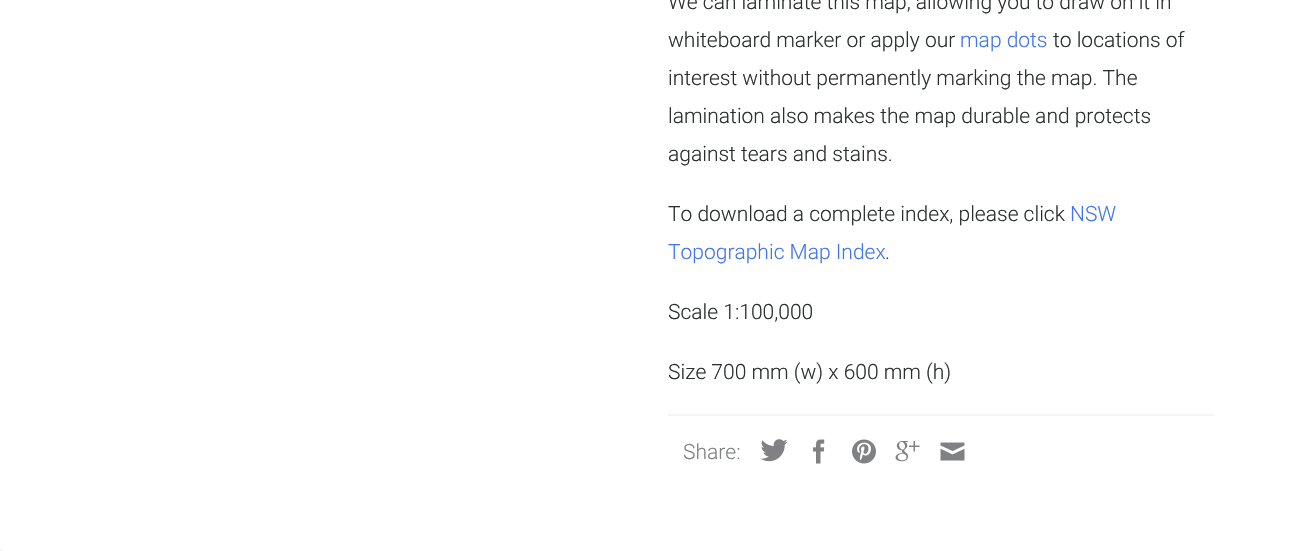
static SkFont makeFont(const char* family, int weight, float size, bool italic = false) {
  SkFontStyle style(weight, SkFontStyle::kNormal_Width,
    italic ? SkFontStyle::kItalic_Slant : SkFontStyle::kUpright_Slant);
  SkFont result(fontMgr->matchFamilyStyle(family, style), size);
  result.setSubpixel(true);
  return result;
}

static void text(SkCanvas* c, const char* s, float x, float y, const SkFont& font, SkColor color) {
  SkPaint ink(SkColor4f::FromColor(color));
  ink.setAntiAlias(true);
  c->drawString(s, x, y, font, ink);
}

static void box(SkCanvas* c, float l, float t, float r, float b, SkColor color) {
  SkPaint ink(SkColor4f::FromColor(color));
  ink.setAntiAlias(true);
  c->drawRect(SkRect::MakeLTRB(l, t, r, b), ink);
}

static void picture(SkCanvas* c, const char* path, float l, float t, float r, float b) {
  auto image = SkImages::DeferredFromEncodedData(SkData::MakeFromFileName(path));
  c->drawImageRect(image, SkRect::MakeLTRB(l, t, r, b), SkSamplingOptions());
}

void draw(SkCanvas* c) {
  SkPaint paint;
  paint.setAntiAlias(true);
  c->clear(0xffffffff);
  SkFont face1 = makeFont("Roboto", 300, 21);
  text(c, "We can laminate this map, allowing you to draw on it in", 668, 9, face1, 0xff2c2f2f);
  text(c, "whiteboard marker or apply our", 668, 47, face1, 0xff2c2f2f);
  text(c, "map dots", 960, 47, face1, 0xff4275ec);
  text(c, "to locations of", 1053, 47, face1, 0xff2c2f2f);
  text(c, "interest without permanently marking the map. The", 668, 85, face1, 0xff2c2f2f);
  text(c, "lamination also makes the map durable and protects", 668, 123, face1, 0xff2c2f2f);
  text(c, "against tears and stains.", 668, 161, face1, 0xff2c2f2f);
  text(c, "To download a complete index, please click", 668, 221, face1, 0xff2c2f2f);
  text(c, "NSW", 1070, 221, face1, 0xff4275ec);
  text(c, "Topographic Map Index", 668, 259, face1, 0xff4275ec);
  text(c, ".", 885, 259, face1, 0xff2c2f2f);
  text(c, "Scale 1:100,000", 668, 319, face1, 0xff2c2f2f);
  text(c, "Size 700 mm (w) x 600 mm (h)", 668, 379, face1, 0xff2c2f2f);
  box(c, 668, 414, 1214, 416, 0xfff4f5f5);
  text(c, "Share:", 683, 459, face1, 0xff808182);
  picture(c, "img_01.png", 760, 439, 788, 462);
  picture(c, "img_02.png", 813, 439, 825, 464);
  picture(c, "img_03.png", 852, 439, 876, 464);
  picture(c, "img_04.png", 895, 441, 920, 462);
  picture(c, "img_05.png", 940, 442, 965, 461);
  box(c, 0, 549, 3, 551, 0xfff5f5f5);
}
